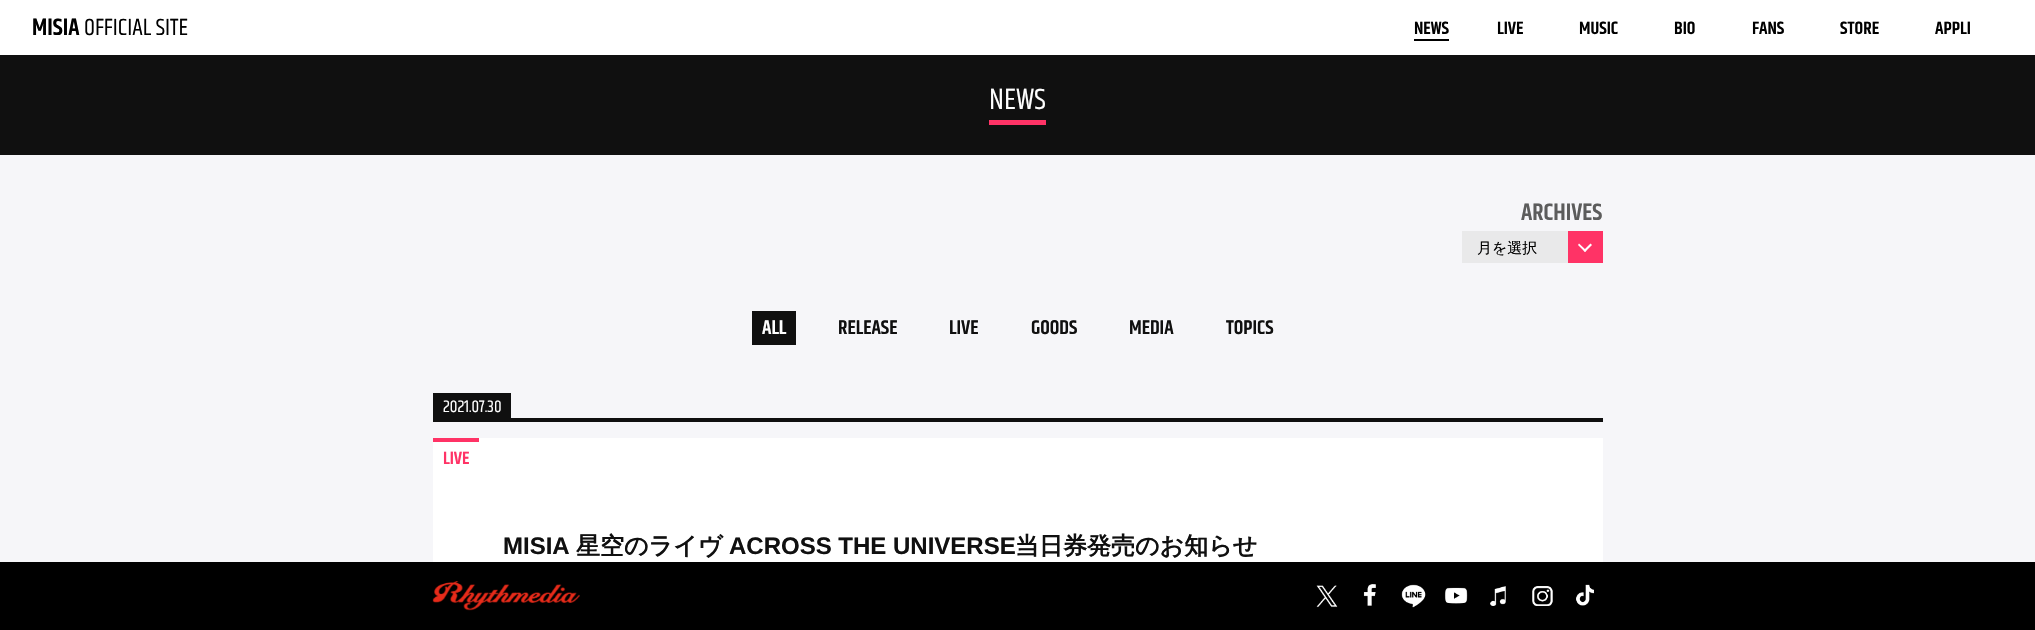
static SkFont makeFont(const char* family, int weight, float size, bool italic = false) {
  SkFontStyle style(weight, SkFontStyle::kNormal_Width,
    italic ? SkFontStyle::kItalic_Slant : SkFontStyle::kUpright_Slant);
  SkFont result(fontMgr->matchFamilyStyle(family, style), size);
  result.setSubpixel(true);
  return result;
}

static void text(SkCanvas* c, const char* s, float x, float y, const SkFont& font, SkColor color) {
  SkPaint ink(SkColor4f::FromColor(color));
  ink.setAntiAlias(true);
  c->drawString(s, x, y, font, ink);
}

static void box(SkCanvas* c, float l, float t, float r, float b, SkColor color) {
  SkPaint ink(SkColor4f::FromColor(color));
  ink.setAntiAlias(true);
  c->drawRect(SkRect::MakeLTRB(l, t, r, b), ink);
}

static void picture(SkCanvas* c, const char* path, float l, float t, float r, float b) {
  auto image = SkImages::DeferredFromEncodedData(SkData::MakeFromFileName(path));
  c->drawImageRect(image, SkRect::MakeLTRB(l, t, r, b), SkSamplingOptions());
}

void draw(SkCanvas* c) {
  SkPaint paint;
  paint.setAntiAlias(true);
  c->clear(0xffffffff);
  SkFont face1 = makeFont("Khand", 600, 24);
  text(c, "MISIA", 32, 35, face1, 0xff000000);
  SkFont face2 = makeFont("Khand", 400, 24);
  text(c, "OFFICIAL SITE", 84, 35, face2, 0xff000000);
  box(c, 1414, 39, 1449, 41, 0xff000000);
  SkFont face3 = makeFont("Khand", 600, 18);
  text(c, "NEWS", 1414, 34, face3, 0xff000000);
  text(c, "LIVE", 1497, 34, face3, 0xff000000);
  text(c, "MUSIC", 1579, 34, face3, 0xff000000);
  text(c, "BIO", 1674, 34, face3, 0xff000000);
  text(c, "FANS", 1752, 34, face3, 0xff000000);
  text(c, "STORE", 1840, 34, face3, 0xff000000);
  text(c, "APPLI", 1935, 34, face3, 0xff000000);
  box(c, 0, 155, 2035, 562, 0xfff6f6f9);
  box(c, 0, 55, 2035, 155, 0xff101010);
  box(c, 989, 120, 1046, 125, 0xffff3366);
  SkFont face4 = makeFont("Khand", 400, 30);
  text(c, "NEWS", 989, 109, face4, 0xffffffff);
  text(c, "ARCHIVES", 1521, 220, face1, 0xff5c5c5c);
  box(c, 1462, 231, 1568, 263, 0xffe9e9ea);
  box(c, 1568, 231, 1603, 263, 0xffff3366);
  SkFont face5 = makeFont("WenQuanYi Zen Hei", 500, 15);
  text(c, "月を選択", 1477, 253, face5, 0xff000000);
  paint.setColor(0xffffffff);
  c->drawPath(SkPathBuilder().moveTo(1590.5f, 243.5f).lineTo(1592, 245).lineTo(1585, 252).lineTo(1583.5f, 250.5f).close().detach(), paint);
  c->drawPath(SkPathBuilder().moveTo(1579, 243.5f).lineTo(1586.5f, 250.5f).lineTo(1585, 252).lineTo(1578, 245).close().detach(), paint);
  box(c, 752, 311, 796, 345, 0xff101010);
  SkFont face6 = makeFont("Khand", 600, 20);
  text(c, "ALL", 762, 334, face6, 0xffffffff);
  text(c, "RELEASE", 838, 334, face6, 0xff101010);
  text(c, "LIVE", 949, 334, face6, 0xff101010);
  text(c, "GOODS", 1031, 334, face6, 0xff101010);
  text(c, "MEDIA", 1129, 334, face6, 0xff101010);
  text(c, "TOPICS", 1226, 334, face6, 0xff101010);
  box(c, 433, 418, 1603, 422, 0xff101010);
  box(c, 433, 393, 511, 418, 0xff101010);
  SkFont face7 = makeFont("Khand", 400, 17);
  text(c, "2021.07.30", 443, 412, face7, 0xffffffff);
  box(c, 433, 438, 1603, 562, 0xffffffff);
  box(c, 433, 438, 479, 442, 0xffff3366);
  text(c, "LIVE", 443, 464, face3, 0xffff3366);
  SkFont face8 = makeFont("Liberation Sans", 700, 24);
  text(c, "MISIA", 503, 554, face8, 0xff101010);
  SkFont face9 = makeFont("WenQuanYi Zen Hei", 700, 24);
  text(c, "星空のライヴ", 576, 554, face9, 0xff101010);
  text(c, "ACROSS THE UNIVERSE", 729, 554, face8, 0xff101010);
  text(c, "当日券発売のお知らせ", 1015, 554, face9, 0xff101010);
  box(c, 0, 562, 2035, 630, 0xff000000);
  picture(c, "img_01.png", 432, 581, 580, 611);
  picture(c, "img_02.png", 1316, 585, 1338, 608);
  picture(c, "img_03.png", 1363, 584, 1376, 606);
  picture(c, "img_04.png", 1401, 584, 1426, 608);
  picture(c, "img_05.png", 1444, 587, 1468, 604);
  picture(c, "img_06.png", 1490, 586, 1506, 606);
  picture(c, "img_07.png", 1532, 586, 1553, 606);
  picture(c, "img_08.png", 1576, 584, 1594, 606);
}
